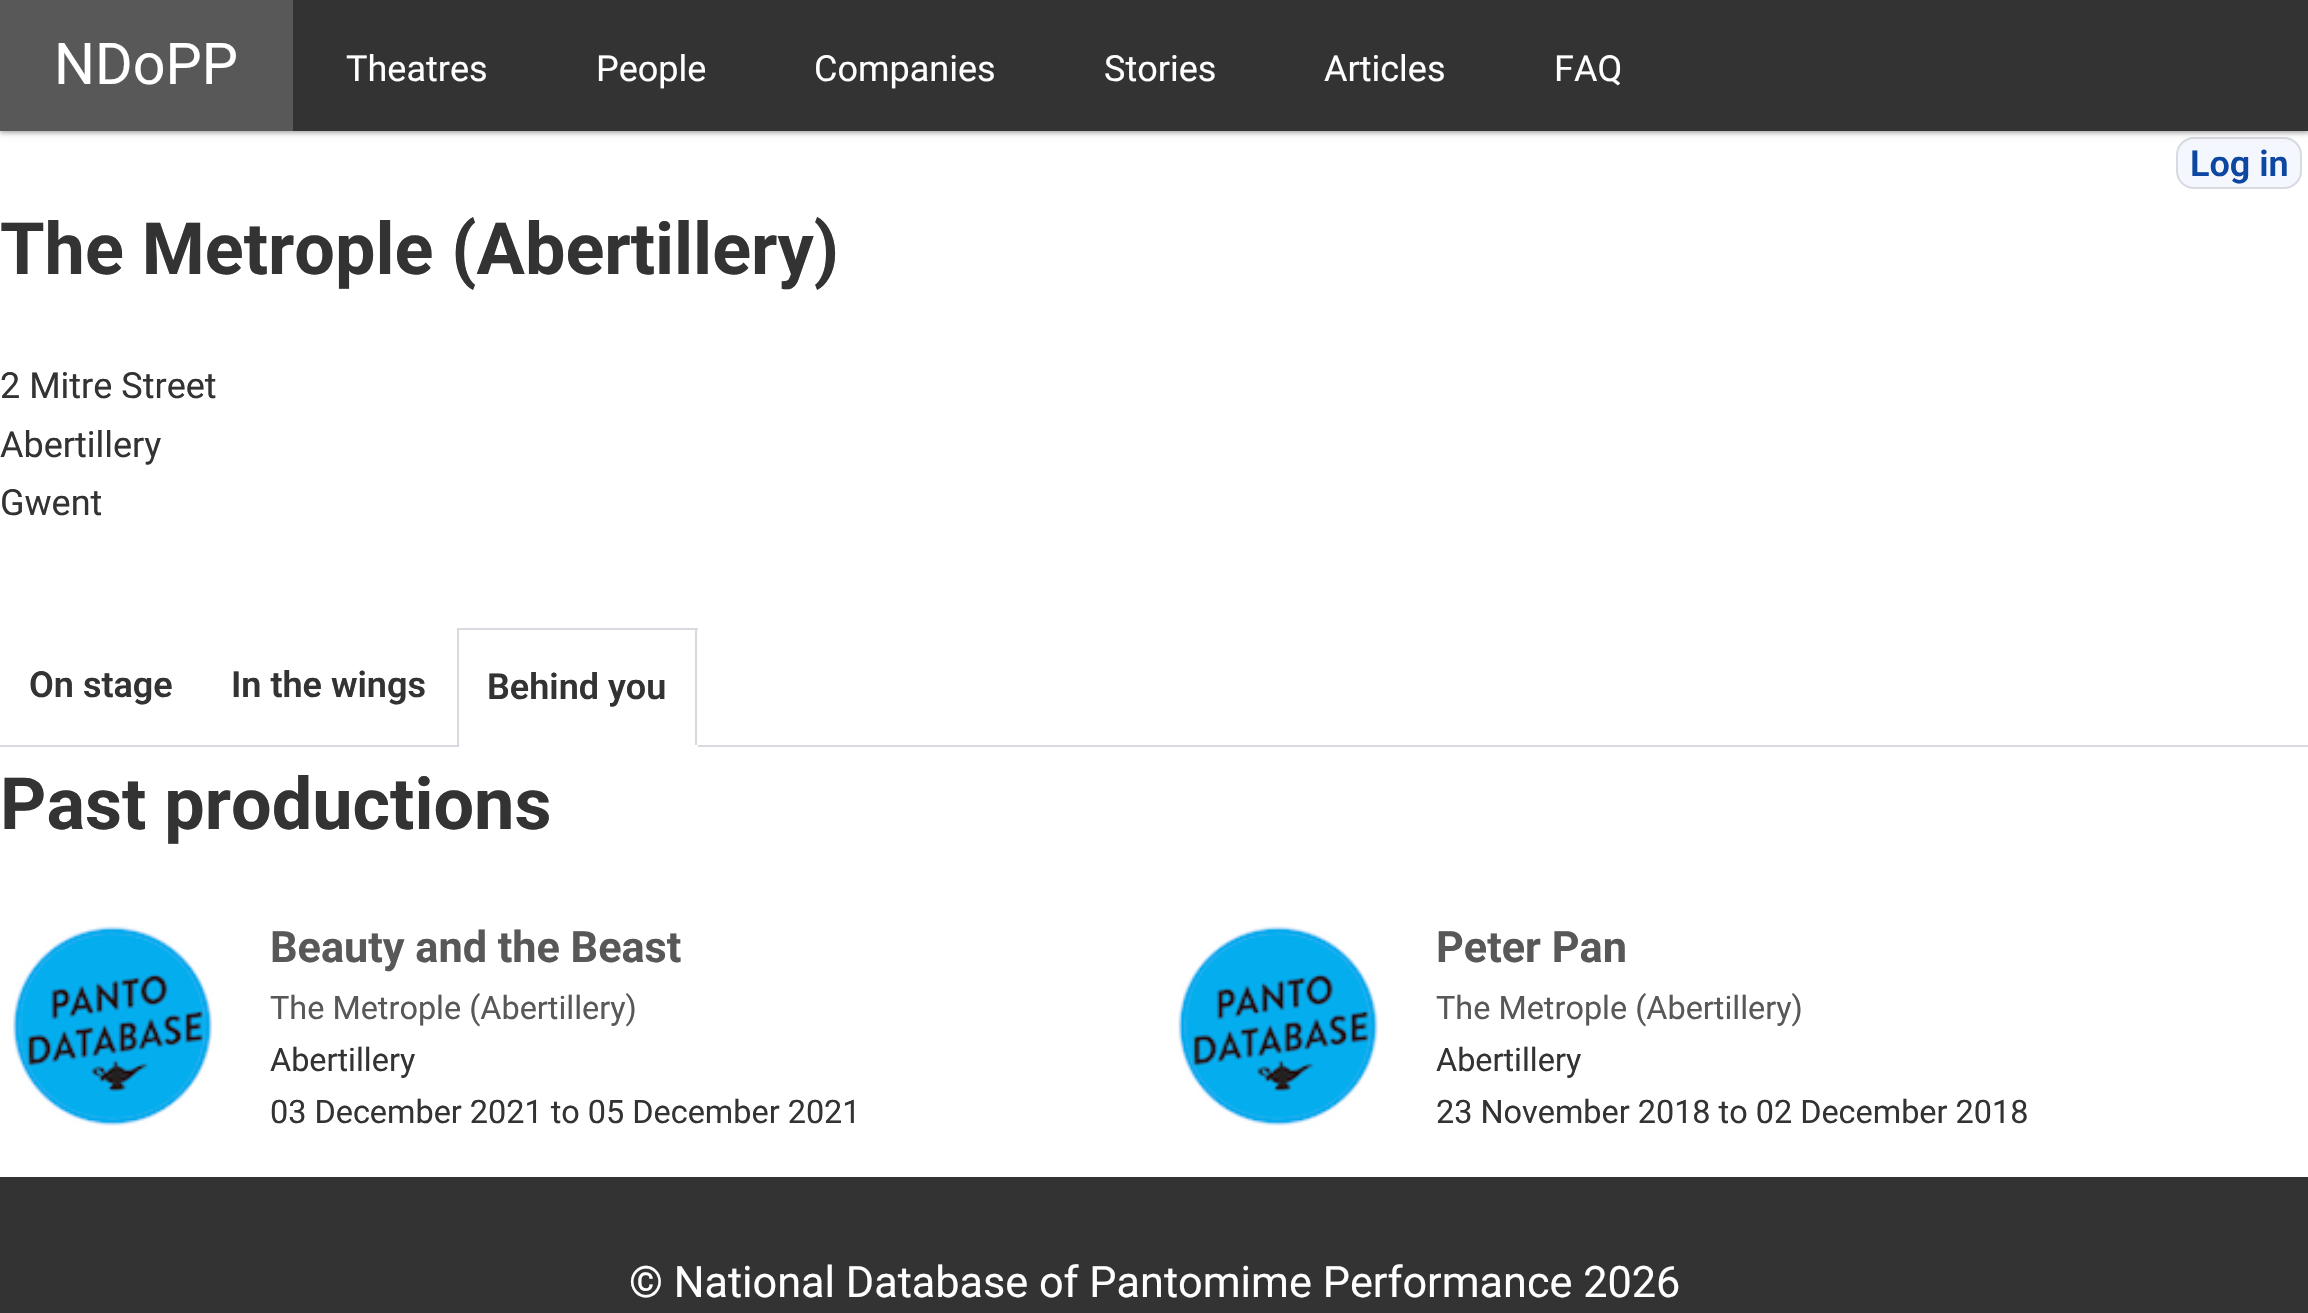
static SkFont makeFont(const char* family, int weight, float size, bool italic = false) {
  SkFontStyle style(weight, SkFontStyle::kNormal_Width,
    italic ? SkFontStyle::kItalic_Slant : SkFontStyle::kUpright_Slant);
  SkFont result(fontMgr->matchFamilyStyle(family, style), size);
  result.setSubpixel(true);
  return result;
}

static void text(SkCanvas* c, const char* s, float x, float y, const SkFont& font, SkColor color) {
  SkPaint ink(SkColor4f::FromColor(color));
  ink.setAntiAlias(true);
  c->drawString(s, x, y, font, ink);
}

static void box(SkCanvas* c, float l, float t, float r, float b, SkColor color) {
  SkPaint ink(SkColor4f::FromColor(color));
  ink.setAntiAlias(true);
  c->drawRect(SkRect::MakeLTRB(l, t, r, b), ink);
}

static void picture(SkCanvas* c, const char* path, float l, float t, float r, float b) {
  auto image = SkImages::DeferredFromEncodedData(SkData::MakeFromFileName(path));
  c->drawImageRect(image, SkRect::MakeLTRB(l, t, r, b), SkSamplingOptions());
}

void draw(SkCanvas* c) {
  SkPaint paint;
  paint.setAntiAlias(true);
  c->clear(0xffffffff);
  paint.setColor(0xfff5f7ff);
  c->drawRoundRect(SkRect::MakeLTRB(2177, 138, 2301, 188), 17, 17, paint);
  paint.setStyle(SkPaint::kStroke_Style);
  paint.setStrokeWidth(2);
  paint.setColor(0xffd8dae1);
  c->drawRoundRect(SkRect::MakeLTRB(2177, 138, 2301, 188), 17, 17, paint);
  paint.setStyle(SkPaint::kFill_Style);
  paint.setColor(0x3d000000);
  paint.setMaskFilter(SkMaskFilter::MakeBlur(kNormal_SkBlurStyle, 2));
  c->drawRect(SkRect::MakeLTRB(0, 2, 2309, 133), paint);
  paint.setMaskFilter(nullptr);
  paint.setColor(0x1f000000);
  paint.setMaskFilter(SkMaskFilter::MakeBlur(kNormal_SkBlurStyle, 3.5f));
  c->drawRect(SkRect::MakeLTRB(0, 2, 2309, 133), paint);
  paint.setMaskFilter(nullptr);
  box(c, 293, 0, 2308, 131, 0xff333333);
  box(c, 0, 0, 293, 131, 0xff585858);
  SkFont face1 = makeFont("Roboto", 400, 57.5f);
  text(c, "NDoPP", 54, 84, face1, 0xffffffff);
  SkFont face2 = makeFont("Roboto", 400, 36);
  text(c, "Theatres", 346, 81, face2, 0xffffffff);
  text(c, "People", 596, 81, face2, 0xffffffff);
  text(c, "Companies", 814, 81, face2, 0xffffffff);
  text(c, "Stories", 1104, 81, face2, 0xffffffff);
  text(c, "Articles", 1324, 81, face2, 0xffffffff);
  text(c, "FAQ", 1554, 81, face2, 0xffffffff);
  SkFont face3 = makeFont("Roboto", 600, 36);
  text(c, "Log in", 2190, 176, face3, 0xff0d47a1);
  SkFont face4 = makeFont("Roboto", 700, 72);
  text(c, "The Metrople (Abertillery)", 0, 274, face4, 0xff333333);
  text(c, "2 Mitre Street", 0, 398, face2, 0xff333333);
  text(c, "Abertillery", 0, 457, face2, 0xff333333);
  text(c, "Gwent", 0, 515, face2, 0xff333333);
  box(c, 0, 745, 2308, 747, 0xffd8dae1);
  text(c, "On stage", 29, 697, face3, 0xff333333);
  text(c, "In the wings", 231, 697, face3, 0xff333333);
  box(c, 457, 628, 698, 630, 0xffd8dae1);
  box(c, 695, 628, 697, 747, 0xffd8dae1);
  box(c, 457, 745, 698, 747, 0xffffffff);
  box(c, 457, 628, 459, 747, 0xffd8dae1);
  text(c, "Behind you", 487, 699, face3, 0xff333333);
  text(c, "Past productions", 0, 829, face4, 0xff333333);
  picture(c, "img_01.png", 13, 926, 213, 1126);
  SkFont face5 = makeFont("Roboto", 700, 43.2f);
  text(c, "Beauty and the Beast", 270, 962, face5, 0xff585858);
  SkFont face6 = makeFont("Roboto", 400, 32.4f);
  text(c, "The Metrople (Abertillery)", 270, 1019, face6, 0xff585858);
  text(c, "Abertillery", 270, 1071, face6, 0xff333333);
  text(c, "03 December 2021 to 05 December 2021", 270, 1123, face6, 0xff333333);
  picture(c, "img_02.png", 1178, 926, 1378, 1126);
  text(c, "Peter Pan", 1436, 962, face5, 0xff585858);
  text(c, "The Metrople (Abertillery)", 1436, 1019, face6, 0xff585858);
  text(c, "Abertillery", 1436, 1071, face6, 0xff333333);
  text(c, "23 November 2018 to 02 December 2018", 1436, 1123, face6, 0xff333333);
  box(c, 0, 1177, 2308, 1313, 0xff333333);
  SkFont face7 = makeFont("Roboto", 400, 43.2f);
  text(c, "© National Database of Pantomime Performance 2026", 629, 1297, face7, 0xffffffff);
}
